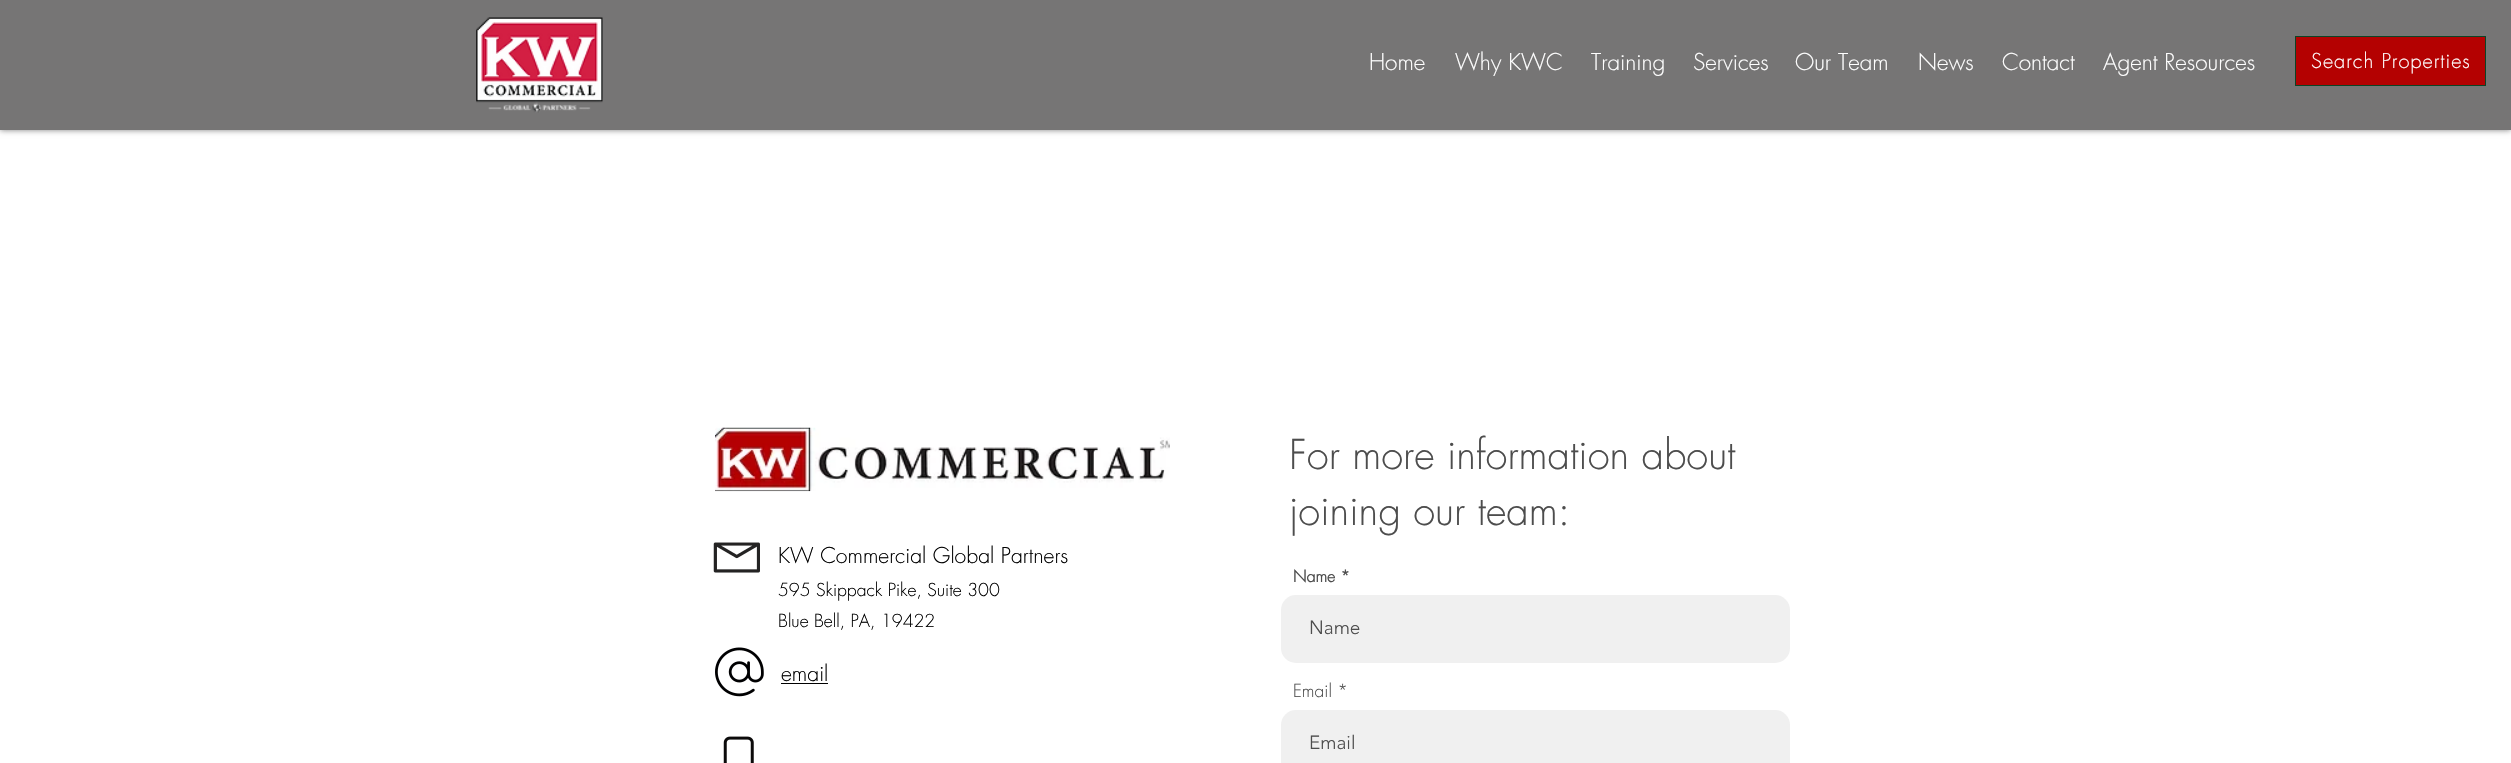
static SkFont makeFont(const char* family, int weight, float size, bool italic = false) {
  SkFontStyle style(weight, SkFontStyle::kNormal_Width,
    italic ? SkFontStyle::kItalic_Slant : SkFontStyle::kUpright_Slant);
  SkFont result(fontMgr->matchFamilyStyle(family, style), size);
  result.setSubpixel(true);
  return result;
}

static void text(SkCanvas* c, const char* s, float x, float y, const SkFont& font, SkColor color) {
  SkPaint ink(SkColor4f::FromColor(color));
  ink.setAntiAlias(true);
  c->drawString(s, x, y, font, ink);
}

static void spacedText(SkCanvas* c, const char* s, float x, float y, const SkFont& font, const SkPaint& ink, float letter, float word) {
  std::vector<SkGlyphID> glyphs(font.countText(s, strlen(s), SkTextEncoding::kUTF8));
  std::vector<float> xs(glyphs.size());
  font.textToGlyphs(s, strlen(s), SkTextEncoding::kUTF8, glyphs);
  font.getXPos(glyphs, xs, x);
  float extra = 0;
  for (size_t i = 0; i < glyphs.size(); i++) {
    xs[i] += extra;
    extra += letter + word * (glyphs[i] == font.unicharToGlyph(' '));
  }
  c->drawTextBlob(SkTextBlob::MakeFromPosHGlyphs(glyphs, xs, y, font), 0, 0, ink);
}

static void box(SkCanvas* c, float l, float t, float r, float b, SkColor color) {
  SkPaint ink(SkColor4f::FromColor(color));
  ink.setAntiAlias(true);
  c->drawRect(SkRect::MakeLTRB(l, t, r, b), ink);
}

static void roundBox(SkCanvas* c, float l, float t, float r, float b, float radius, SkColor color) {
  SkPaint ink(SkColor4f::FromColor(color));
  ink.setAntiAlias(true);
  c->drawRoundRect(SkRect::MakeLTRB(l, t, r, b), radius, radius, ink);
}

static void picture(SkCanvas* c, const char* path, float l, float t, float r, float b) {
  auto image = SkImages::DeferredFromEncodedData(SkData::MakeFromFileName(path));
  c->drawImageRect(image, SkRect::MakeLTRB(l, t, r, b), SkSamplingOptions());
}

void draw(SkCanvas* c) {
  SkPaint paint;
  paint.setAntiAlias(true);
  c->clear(0xffffffff);
  paint.setColor(0x80000000);
  paint.setMaskFilter(SkMaskFilter::MakeBlur(kNormal_SkBlurStyle, 3));
  c->drawRect(SkRect::MakeLTRB(0, 0, 2511, 130), paint);
  paint.setMaskFilter(nullptr);
  box(c, 0, 0, 2511, 130, 0xff767575);
  picture(c, "img_01.png", 476, 17, 603, 113);
  SkFont face1 = makeFont("futura", 300, 22.5f);
  text(c, "Home", 1369, 70, face1, 0xffffffff);
  text(c, "Why KWC", 1455, 70, face1, 0xffffffff);
  text(c, "Training", 1591, 70, face1, 0xffffffff);
  text(c, "Services", 1693, 70, face1, 0xffffffff);
  text(c, "Our Team", 1795, 70, face1, 0xffffffff);
  text(c, "News", 1918, 70, face1, 0xffffffff);
  text(c, "Contact", 2002, 70, face1, 0xffffffff);
  text(c, "Agent Resources", 2103, 70, face1, 0xffffffff);
  paint.setColor(0xffb40101);
  c->drawRect(SkRect::MakeLTRB(2295.5f, 36.5f, 2485.5f, 85.5f), paint);
  paint.setStyle(SkPaint::kStroke_Style);
  paint.setStrokeWidth(1);
  paint.setColor(0xff0c4426);
  c->drawRect(SkRect::MakeLTRB(2295.5f, 36.5f, 2485.5f, 85.5f), paint);
  SkFont face2 = makeFont("futura", 300, 20);
  paint.setStyle(SkPaint::kFill_Style);
  paint.setColor(0xffffffff);
  spacedText(c, "Search Properties", 2311, 68, face2, paint, 1, 0);
  picture(c, "img_02.png", 715, 427, 1170, 492);
  picture(c, "img_03.png", 713, 542, 760, 573);
  SkFont face3 = makeFont("futura", 300, 21.25f);
  text(c, "KW Commercial Global Partners", 778, 563, face3, 0xff000000);
  SkFont face4 = makeFont("futura", 300, 17.5f);
  text(c, "595 Skippack Pike, Suite 300", 778, 596, face4, 0xff000000);
  text(c, "Blue Bell, PA, 19422", 778, 627, face4, 0xff000000);
  picture(c, "img_04.png", 715, 647, 764, 697);
  text(c, "email", 781, 681, face3, 0xff000000);
  box(c, 781, 683, 828, 684, 0xff000000);
  picture(c, "img_05.png", 723, 736, 754, 763);
  SkFont face5 = makeFont("futura", 300, 40);
  text(c, "For more information about", 1289, 469, face5, 0xff4d4d4d);
  text(c, "joining our team:", 1289, 525, face5, 0xff4d4d4d);
  SkFont face6 = makeFont("futura", 700, 16);
  text(c, "Name *", 1293, 582, face6, 0xff4d4d4d);
  roundBox(c, 1281, 595, 1790, 663, 15, 0xfff0f0f0);
  SkFont face7 = makeFont("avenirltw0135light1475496", 300, 19);
  text(c, "Name", 1309, 634, face7, 0xff4d4d4d);
  text(c, "Email *", 1293, 697, face4, 0xff4d4d4d);
  roundBox(c, 1281, 710, 1790, 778, 15, 0xfff0f0f0);
  text(c, "Email", 1309, 749, face7, 0xff4d4d4d);
}
